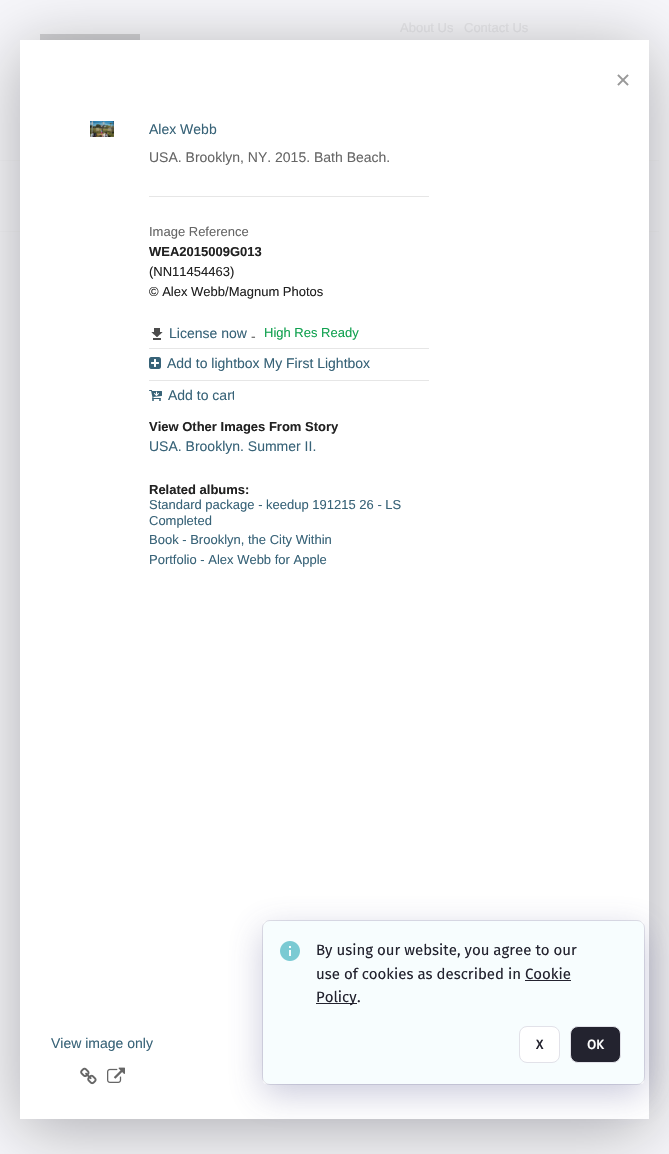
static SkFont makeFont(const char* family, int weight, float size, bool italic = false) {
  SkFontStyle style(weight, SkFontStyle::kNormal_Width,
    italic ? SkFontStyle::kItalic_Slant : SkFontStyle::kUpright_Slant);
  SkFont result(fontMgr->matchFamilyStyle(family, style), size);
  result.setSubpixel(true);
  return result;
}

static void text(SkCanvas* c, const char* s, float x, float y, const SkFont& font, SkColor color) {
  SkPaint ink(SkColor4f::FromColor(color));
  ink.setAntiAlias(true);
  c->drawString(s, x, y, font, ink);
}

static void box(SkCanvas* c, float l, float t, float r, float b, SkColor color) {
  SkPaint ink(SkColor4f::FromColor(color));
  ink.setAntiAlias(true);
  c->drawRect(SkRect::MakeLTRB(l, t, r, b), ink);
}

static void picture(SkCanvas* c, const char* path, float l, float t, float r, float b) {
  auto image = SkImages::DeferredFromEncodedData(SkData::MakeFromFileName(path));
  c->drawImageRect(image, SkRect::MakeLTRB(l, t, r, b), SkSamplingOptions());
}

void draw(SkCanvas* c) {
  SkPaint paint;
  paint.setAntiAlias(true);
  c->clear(0xfff7f7fb);
  SkFont face1 = makeFont("Liberation Sans", 400, 13);
  text(c, "About Us", 400, 32, face1, 0xffe8e8eb);
  text(c, "Contact Us", 464, 32, face1, 0xffe8e8eb);
  picture(c, "img_01.png", 40, 34, 140, 40);
  box(c, 0, 160, 659, 161, 0xfff4f4f7);
  box(c, 0, 231, 659, 232, 0xfff4f4f7);
  paint.setColor(0x4d000000);
  paint.setMaskFilter(SkMaskFilter::MakeBlur(kNormal_SkBlurStyle, 32));
  c->drawRect(SkRect::MakeLTRB(20, 50, 649, 1129), paint);
  paint.setMaskFilter(nullptr);
  box(c, 20, 40, 649, 1119, 0xffffffff);
  picture(c, "img_02.png", 617, 74, 629, 86);
  SkFont face2 = makeFont("Liberation Sans", 400, 14);
  text(c, "Alex Webb", 149, 134, face2, 0xff386378);
  text(c, "USA. Brooklyn, NY. 2015. Bath Beach.", 149, 162, face2, 0xff666666);
  box(c, 149, 196, 429, 197, 0xffe6e6e6);
  text(c, "Image Reference", 149, 236, face1, 0xff666666);
  SkFont face3 = makeFont("Liberation Sans", 700, 13);
  text(c, "WEA2015009G013", 149, 256, face3, 0xff212121);
  text(c, "(NN11454463)", 149, 276, face1, 0xff212121);
  text(c, "© Alex Webb/Magnum Photos", 149, 296, face1, 0xff212121);
  picture(c, "img_03.png", 151, 328, 163, 340);
  text(c, "License now", 169, 338, face2, 0xff386378);
  text(c, "-", 251, 341, face2, 0xff666666);
  text(c, "High Res Ready", 264, 337, face1, 0xff10a14f);
  box(c, 149, 348, 429, 349, 0xffe6e6e6);
  picture(c, "img_04.png", 149, 357, 161, 369);
  text(c, "Add to lightbox My First Lightbox", 167, 368, face2, 0xff386378);
  box(c, 149, 380, 429, 381, 0xffe6e6e6);
  picture(c, "img_05.png", 149, 390, 162, 401);
  c->save();
  c->clipRect(SkRect::MakeLTRB(149, 387, 234, 404));
  text(c, "Add to cart", 168, 400, face2, 0xff386378);
  c->restore();
  text(c, "View Other Images From Story", 149, 431, face3, 0xff212121);
  text(c, "USA. Brooklyn. Summer II.", 149, 451, face2, 0xff386378);
  text(c, "Related albums:", 149, 494, face3, 0xff212121);
  text(c, "Standard package - keedup 191215 26 - LS", 149, 509, face1, 0xff386378);
  text(c, "Completed", 149, 525, face1, 0xff386378);
  text(c, "Book - Brooklyn, the City Within", 149, 544, face1, 0xff386378);
  text(c, "Portfolio - Alex Webb for Apple", 149, 564, face1, 0xff386378);
  picture(c, "img_06.png", 90, 121, 114, 137);
  text(c, "View image only", 51, 1048, face2, 0xff386378);
  picture(c, "img_07.png", 80, 1067, 97, 1085);
  picture(c, "img_08.png", 107, 1067, 125, 1083);
  paint.setColor(0xfff7fdfe);
  c->drawRoundRect(SkRect::MakeLTRB(262.5f, 920.5f, 644.5f, 1084.5f), 7.5f, 7.5f, paint);
  paint.setStyle(SkPaint::kStroke_Style);
  paint.setStrokeWidth(1);
  paint.setColor(0xffe2e2e9);
  c->drawRoundRect(SkRect::MakeLTRB(262.5f, 920.5f, 644.5f, 1084.5f), 7.5f, 7.5f, paint);
  c->save();
  c->clipPath(SkPathBuilder(SkPathFillType::kEvenOdd).moveTo(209, 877).lineTo(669, 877).lineTo(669, 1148).lineTo(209, 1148).close().moveTo(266, 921).lineTo(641, 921).cubicTo(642.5f, 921, 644, 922.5f, 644, 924).lineTo(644, 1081).cubicTo(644, 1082.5f, 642.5f, 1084, 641, 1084).lineTo(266, 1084).cubicTo(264.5f, 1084, 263, 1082.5f, 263, 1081).lineTo(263, 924).cubicTo(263, 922.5f, 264.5f, 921, 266, 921).close().detach(), true);
  paint.setStyle(SkPaint::kFill_Style);
  paint.setColor(0x4d4d4d87);
  paint.setMaskFilter(SkMaskFilter::MakeBlur(kNormal_SkBlurStyle, 17.5f));
  c->drawRoundRect(SkRect::MakeLTRB(263, 931, 644, 1094), 3, 3, paint);
  paint.setMaskFilter(nullptr);
  c->restore();
  picture(c, "img_09.png", 280, 941, 300, 961);
  SkFont face4 = makeFont("Fira Sans", 400, 15);
  text(c, "By using our website, you agree to our", 316, 955, face4, 0xff23232f);
  text(c, "use of cookies as described in Cookie", 316, 979, face4, 0xff23232f);
  box(c, 316, 1003, 357, 1004, 0xff23232f);
  text(c, "Policy", 316, 1002, face4, 0xff23232f);
  box(c, 525, 980, 571, 981, 0xff23232f);
  text(c, ".", 357, 1002, face4, 0xff23232f);
  paint.setColor(0xffffffff);
  c->drawRoundRect(SkRect::MakeLTRB(519.5f, 1026.5f, 559.5f, 1062.5f), 7.5f, 7.5f, paint);
  paint.setStyle(SkPaint::kStroke_Style);
  paint.setColor(0xffe2e2e9);
  c->drawRoundRect(SkRect::MakeLTRB(519.5f, 1026.5f, 559.5f, 1062.5f), 7.5f, 7.5f, paint);
  SkFont face5 = makeFont("Fira Sans", 700, 13);
  text(c, "X", 536, 1049, face5, 0xff23232f);
  paint.setStyle(SkPaint::kFill_Style);
  paint.setColor(0xff23232f);
  c->drawRoundRect(SkRect::MakeLTRB(570.5f, 1026.5f, 620.5f, 1062.5f), 7.5f, 7.5f, paint);
  paint.setStyle(SkPaint::kStroke_Style);
  paint.setColor(0xffe2e2e9);
  c->drawRoundRect(SkRect::MakeLTRB(570.5f, 1026.5f, 620.5f, 1062.5f), 7.5f, 7.5f, paint);
  text(c, "OK", 587, 1049, face5, 0xffffffff);
}
